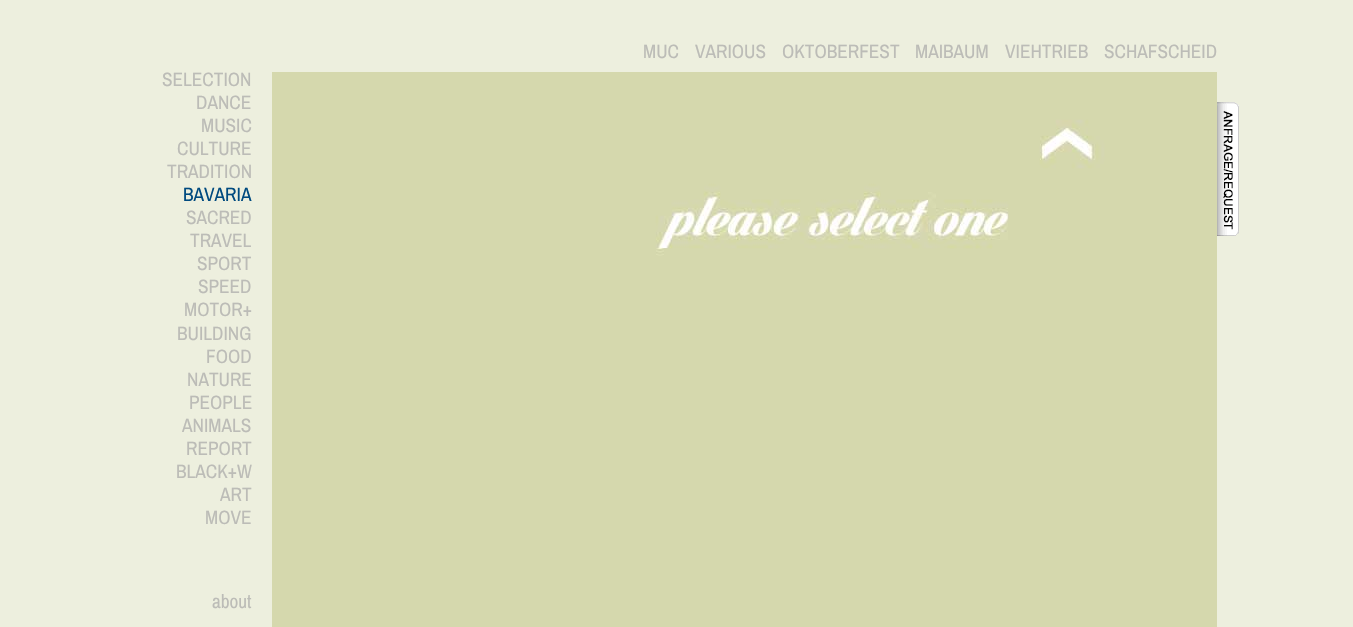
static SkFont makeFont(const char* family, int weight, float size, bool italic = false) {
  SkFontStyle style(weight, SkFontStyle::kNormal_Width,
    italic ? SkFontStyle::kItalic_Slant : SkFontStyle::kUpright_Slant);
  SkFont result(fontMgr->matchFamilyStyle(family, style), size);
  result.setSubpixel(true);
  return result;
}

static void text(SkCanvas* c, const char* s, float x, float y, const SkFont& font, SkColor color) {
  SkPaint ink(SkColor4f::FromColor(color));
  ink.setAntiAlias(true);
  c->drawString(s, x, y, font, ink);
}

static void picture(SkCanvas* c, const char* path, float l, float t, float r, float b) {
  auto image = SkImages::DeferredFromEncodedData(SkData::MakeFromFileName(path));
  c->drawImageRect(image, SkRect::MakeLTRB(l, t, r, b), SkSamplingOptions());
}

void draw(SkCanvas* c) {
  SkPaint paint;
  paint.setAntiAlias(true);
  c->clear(0xffedefde);
  SkFont face1 = makeFont("Archivo Narrow", 400, 19.25f);
  text(c, "MUC", 643, 58, face1, 0xffbcbcb7);
  text(c, "VARIOUS", 695, 58, face1, 0xffbcbcb7);
  text(c, "OKTOBERFEST", 782, 58, face1, 0xffbcbcb7);
  text(c, "MAIBAUM", 915, 58, face1, 0xffbcbcb7);
  text(c, "VIEHTRIEB", 1005, 58, face1, 0xffbcbcb7);
  text(c, "SCHAFSCHEID", 1104, 58, face1, 0xffbcbcb7);
  text(c, "SELECTION", 162, 86, face1, 0xffbcbcb7);
  text(c, "DANCE", 196, 109, face1, 0xffbcbcb7);
  text(c, "MUSIC", 201, 132, face1, 0xffbcbcb7);
  text(c, "CULTURE", 177, 155, face1, 0xffbcbcb7);
  text(c, "TRADITION", 167, 178, face1, 0xffbcbcb7);
  text(c, "BAVARIA", 183, 201, face1, 0xff004a7f);
  text(c, "SACRED", 186, 224, face1, 0xffbcbcb7);
  text(c, "TRAVEL", 190, 247, face1, 0xffbcbcb7);
  text(c, "SPORT", 197, 270, face1, 0xffbcbcb7);
  text(c, "SPEED", 198, 293, face1, 0xffbcbcb7);
  text(c, "MOTOR+", 184, 316, face1, 0xffbcbcb7);
  text(c, "BUILDING", 177, 340, face1, 0xffbcbcb7);
  text(c, "FOOD", 206, 363, face1, 0xffbcbcb7);
  text(c, "NATURE", 187, 386, face1, 0xffbcbcb7);
  text(c, "PEOPLE", 189, 409, face1, 0xffbcbcb7);
  text(c, "ANIMALS", 182, 432, face1, 0xffbcbcb7);
  text(c, "REPORT", 186, 455, face1, 0xffbcbcb7);
  text(c, "BLACK+W", 176, 478, face1, 0xffbcbcb7);
  text(c, "ART", 220, 501, face1, 0xffbcbcb7);
  text(c, "MOVE", 205, 524, face1, 0xffbcbcb7);
  text(c, "about", 212, 608, face1, 0xffbcbcb7);
  picture(c, "img_01.png", 272, 72, 1217, 627);
  picture(c, "img_02.png", 1217, 102, 1239, 236);
}
